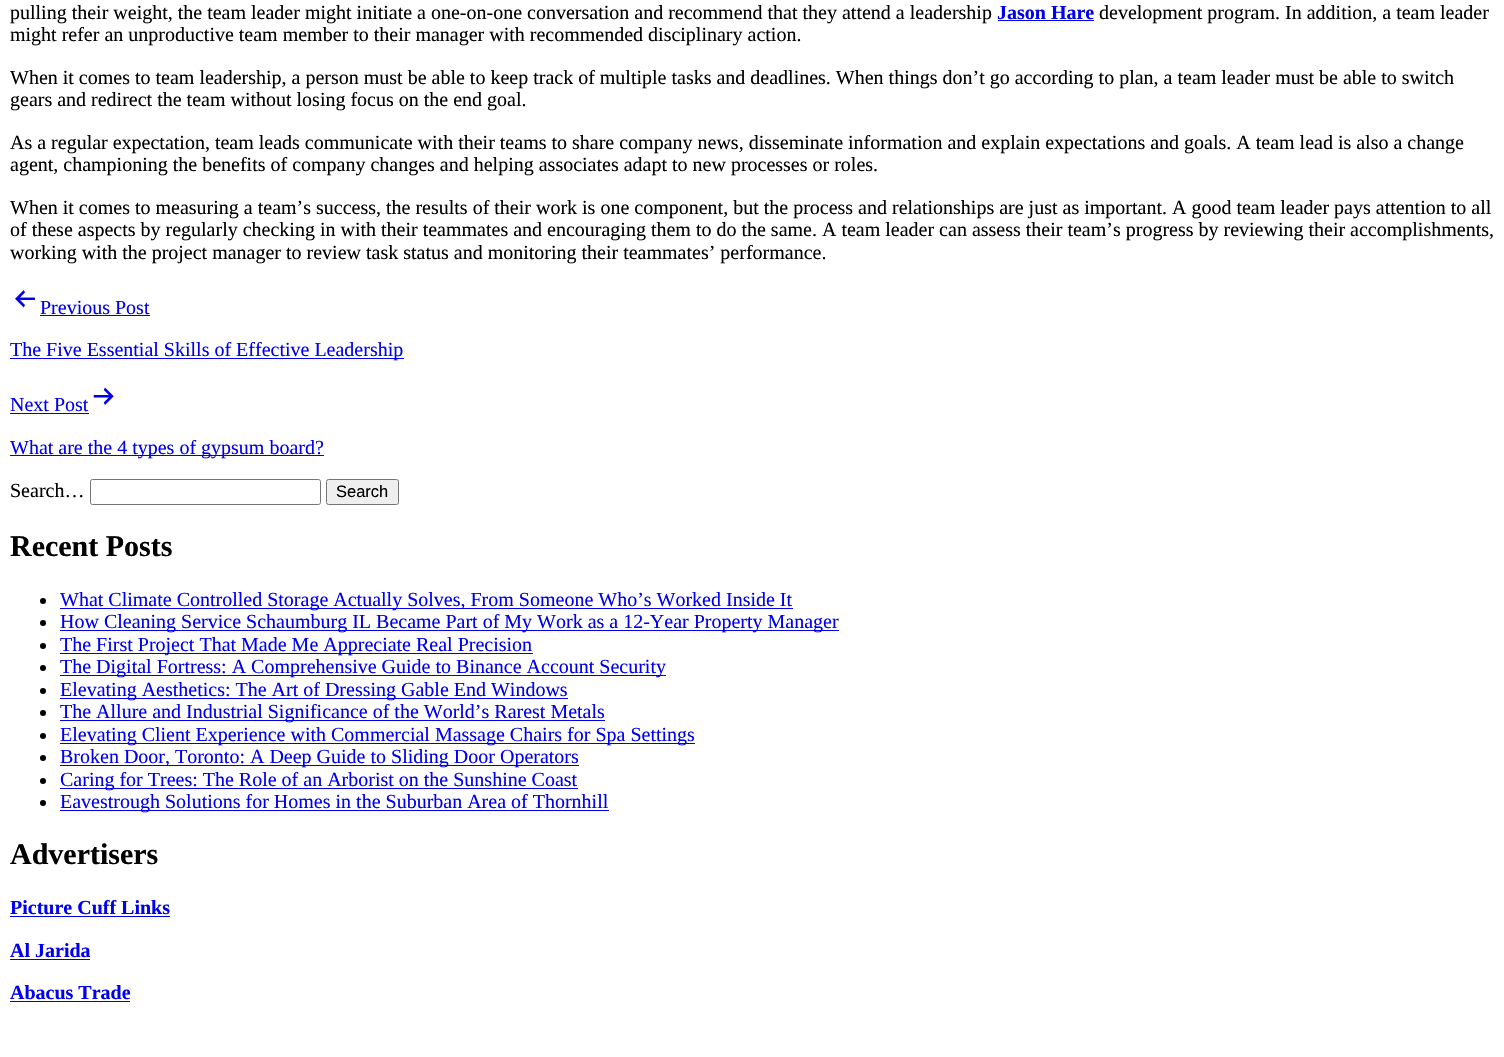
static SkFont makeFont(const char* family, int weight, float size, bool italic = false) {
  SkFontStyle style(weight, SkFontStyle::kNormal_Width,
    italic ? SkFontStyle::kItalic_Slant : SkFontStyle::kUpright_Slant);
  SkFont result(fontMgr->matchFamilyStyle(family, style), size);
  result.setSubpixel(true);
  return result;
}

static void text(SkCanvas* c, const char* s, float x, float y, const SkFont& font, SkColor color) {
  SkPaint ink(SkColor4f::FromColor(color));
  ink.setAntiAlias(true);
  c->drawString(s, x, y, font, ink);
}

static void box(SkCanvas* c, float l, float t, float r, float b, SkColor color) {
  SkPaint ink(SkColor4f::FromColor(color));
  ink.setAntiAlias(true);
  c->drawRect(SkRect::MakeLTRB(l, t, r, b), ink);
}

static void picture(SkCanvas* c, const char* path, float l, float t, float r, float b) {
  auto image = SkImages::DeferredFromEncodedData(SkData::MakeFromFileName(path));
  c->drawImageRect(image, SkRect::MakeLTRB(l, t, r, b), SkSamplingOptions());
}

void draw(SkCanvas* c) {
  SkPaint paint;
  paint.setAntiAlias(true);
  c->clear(0xffffffff);
  SkFont face1 = makeFont("Liberation Serif", 400, 20);
  text(c, "pulling their weight, the team leader might initiate a one-on-one conversation and recommend that they attend a leadership", 10, 19, face1, 0xff000000);
  SkFont face2 = makeFont("Liberation Serif", 700, 20);
  text(c, "Jason Hare", 997, 19, face2, 0xff0000ee);
  box(c, 998, 20, 1094, 21, 0xff0000ee);
  text(c, "development program. In addition, a team leader", 1099, 19, face1, 0xff000000);
  text(c, "might refer an unproductive team member to their manager with recommended disciplinary action.", 10, 41, face1, 0xff000000);
  text(c, "When it comes to team leadership, a person must be able to keep track of multiple tasks and deadlines. When things don’t go according to plan, a team leader must be able to switch", 10, 84, face1, 0xff000000);
  text(c, "gears and redirect the team without losing focus on the end goal.", 10, 106, face1, 0xff000000);
  text(c, "As a regular expectation, team leads communicate with their teams to share company news, disseminate information and explain expectations and goals. A team lead is also a change", 10, 149, face1, 0xff000000);
  text(c, "agent, championing the benefits of company changes and helping associates adapt to new processes or roles.", 10, 171, face1, 0xff000000);
  text(c, "When it comes to measuring a team’s success, the results of their work is one component, but the process and relationships are just as important. A good team leader pays attention to all", 10, 214, face1, 0xff000000);
  text(c, "of these aspects by regularly checking in with their teammates and encouraging them to do the same. A team leader can assess their team’s progress by reviewing their accomplishments,", 10, 236, face1, 0xff000000);
  text(c, "working with the project manager to review task status and monitoring their teammates’ performance.", 10, 259, face1, 0xff000000);
  picture(c, "img_01.png", 15, 290, 35, 308);
  text(c, "Previous Post", 40, 314, face1, 0xff0000ee);
  box(c, 40, 315, 150, 316, 0xff0000ee);
  box(c, 10, 358, 404, 359, 0xff0000ee);
  text(c, "The Five Essential Skills of Effective Leadership", 10, 356, face1, 0xff0000ee);
  text(c, "Next Post", 10, 411, face1, 0xff0000ee);
  box(c, 10, 413, 89, 414, 0xff0000ee);
  picture(c, "img_02.png", 93, 387, 114, 405);
  box(c, 10, 455, 324, 456, 0xff0000ee);
  text(c, "What are the 4 types of gypsum board?", 10, 454, face1, 0xff0000ee);
  text(c, "Search…", 10, 497, face1, 0xff000000);
  paint.setStyle(SkPaint::kStroke_Style);
  paint.setStrokeWidth(1);
  paint.setColor(0xff767676);
  c->drawRoundRect(SkRect::MakeLTRB(90.5f, 479.5f, 320.5f, 504.5f), 2, 2, paint);
  paint.setStyle(SkPaint::kFill_Style);
  paint.setColor(0xffefefef);
  c->drawRoundRect(SkRect::MakeLTRB(326.5f, 479.5f, 398.5f, 504.5f), 2, 2, paint);
  paint.setStyle(SkPaint::kStroke_Style);
  paint.setColor(0xff767676);
  c->drawRoundRect(SkRect::MakeLTRB(326.5f, 479.5f, 398.5f, 504.5f), 2, 2, paint);
  SkFont face3 = makeFont("Liberation Sans", 400, 16.5f);
  text(c, "Search", 336, 497, face3, 0xff000000);
  SkFont face4 = makeFont("Liberation Serif", 700, 30);
  text(c, "Recent Posts", 10, 556, face4, 0xff000000);
  paint.setStyle(SkPaint::kFill_Style);
  paint.setColor(0xff000000);
  c->drawCircle(43, 601, 3, paint);
  box(c, 60, 608, 793, 609, 0xff0000ee);
  text(c, "What Climate Controlled Storage Actually Solves, From Someone Who’s Worked Inside It", 60, 606, face1, 0xff0000ee);
  c->drawCircle(43, 623, 3, paint);
  box(c, 60, 630, 839, 631, 0xff0000ee);
  text(c, "How Cleaning Service Schaumburg IL Became Part of My Work as a 12-Year Property Manager", 60, 628, face1, 0xff0000ee);
  c->drawCircle(43, 646, 3, paint);
  box(c, 60, 653, 533, 654, 0xff0000ee);
  text(c, "The First Project That Made Me Appreciate Real Precision", 60, 651, face1, 0xff0000ee);
  c->drawCircle(43, 668, 3, paint);
  box(c, 60, 675, 666, 676, 0xff0000ee);
  text(c, "The Digital Fortress: A Comprehensive Guide to Binance Account Security", 60, 673, face1, 0xff0000ee);
  c->drawCircle(43, 691, 3, paint);
  box(c, 60, 698, 568, 699, 0xff0000ee);
  text(c, "Elevating Aesthetics: The Art of Dressing Gable End Windows", 60, 696, face1, 0xff0000ee);
  c->drawCircle(43, 713, 3, paint);
  box(c, 60, 720, 605, 721, 0xff0000ee);
  text(c, "The Allure and Industrial Significance of the World’s Rarest Metals", 60, 718, face1, 0xff0000ee);
  c->drawCircle(43, 736, 3, paint);
  box(c, 60, 743, 695, 744, 0xff0000ee);
  text(c, "Elevating Client Experience with Commercial Massage Chairs for Spa Settings", 60, 741, face1, 0xff0000ee);
  c->drawCircle(43, 758, 3, paint);
  box(c, 60, 765, 579, 766, 0xff0000ee);
  text(c, "Broken Door, Toronto: A Deep Guide to Sliding Door Operators", 60, 763, face1, 0xff0000ee);
  c->drawCircle(43, 781, 3, paint);
  box(c, 60, 788, 578, 789, 0xff0000ee);
  text(c, "Caring for Trees: The Role of an Arborist on the Sunshine Coast", 60, 786, face1, 0xff0000ee);
  c->drawCircle(43, 803, 3, paint);
  box(c, 60, 810, 609, 811, 0xff0000ee);
  text(c, "Eavestrough Solutions for Homes in the Suburban Area of Thornhill", 60, 808, face1, 0xff0000ee);
  text(c, "Advertisers", 10, 864, face4, 0xff000000);
  text(c, "Picture Cuff Links", 10, 914, face2, 0xff0000ee);
  box(c, 10, 916, 170, 917, 0xff0000ee);
  text(c, "Al Jarida", 10, 957, face2, 0xff0000ee);
  box(c, 10, 959, 90, 960, 0xff0000ee);
  text(c, "Abacus Trade", 10, 999, face2, 0xff0000ee);
  box(c, 10, 1001, 130, 1002, 0xff0000ee);
}
